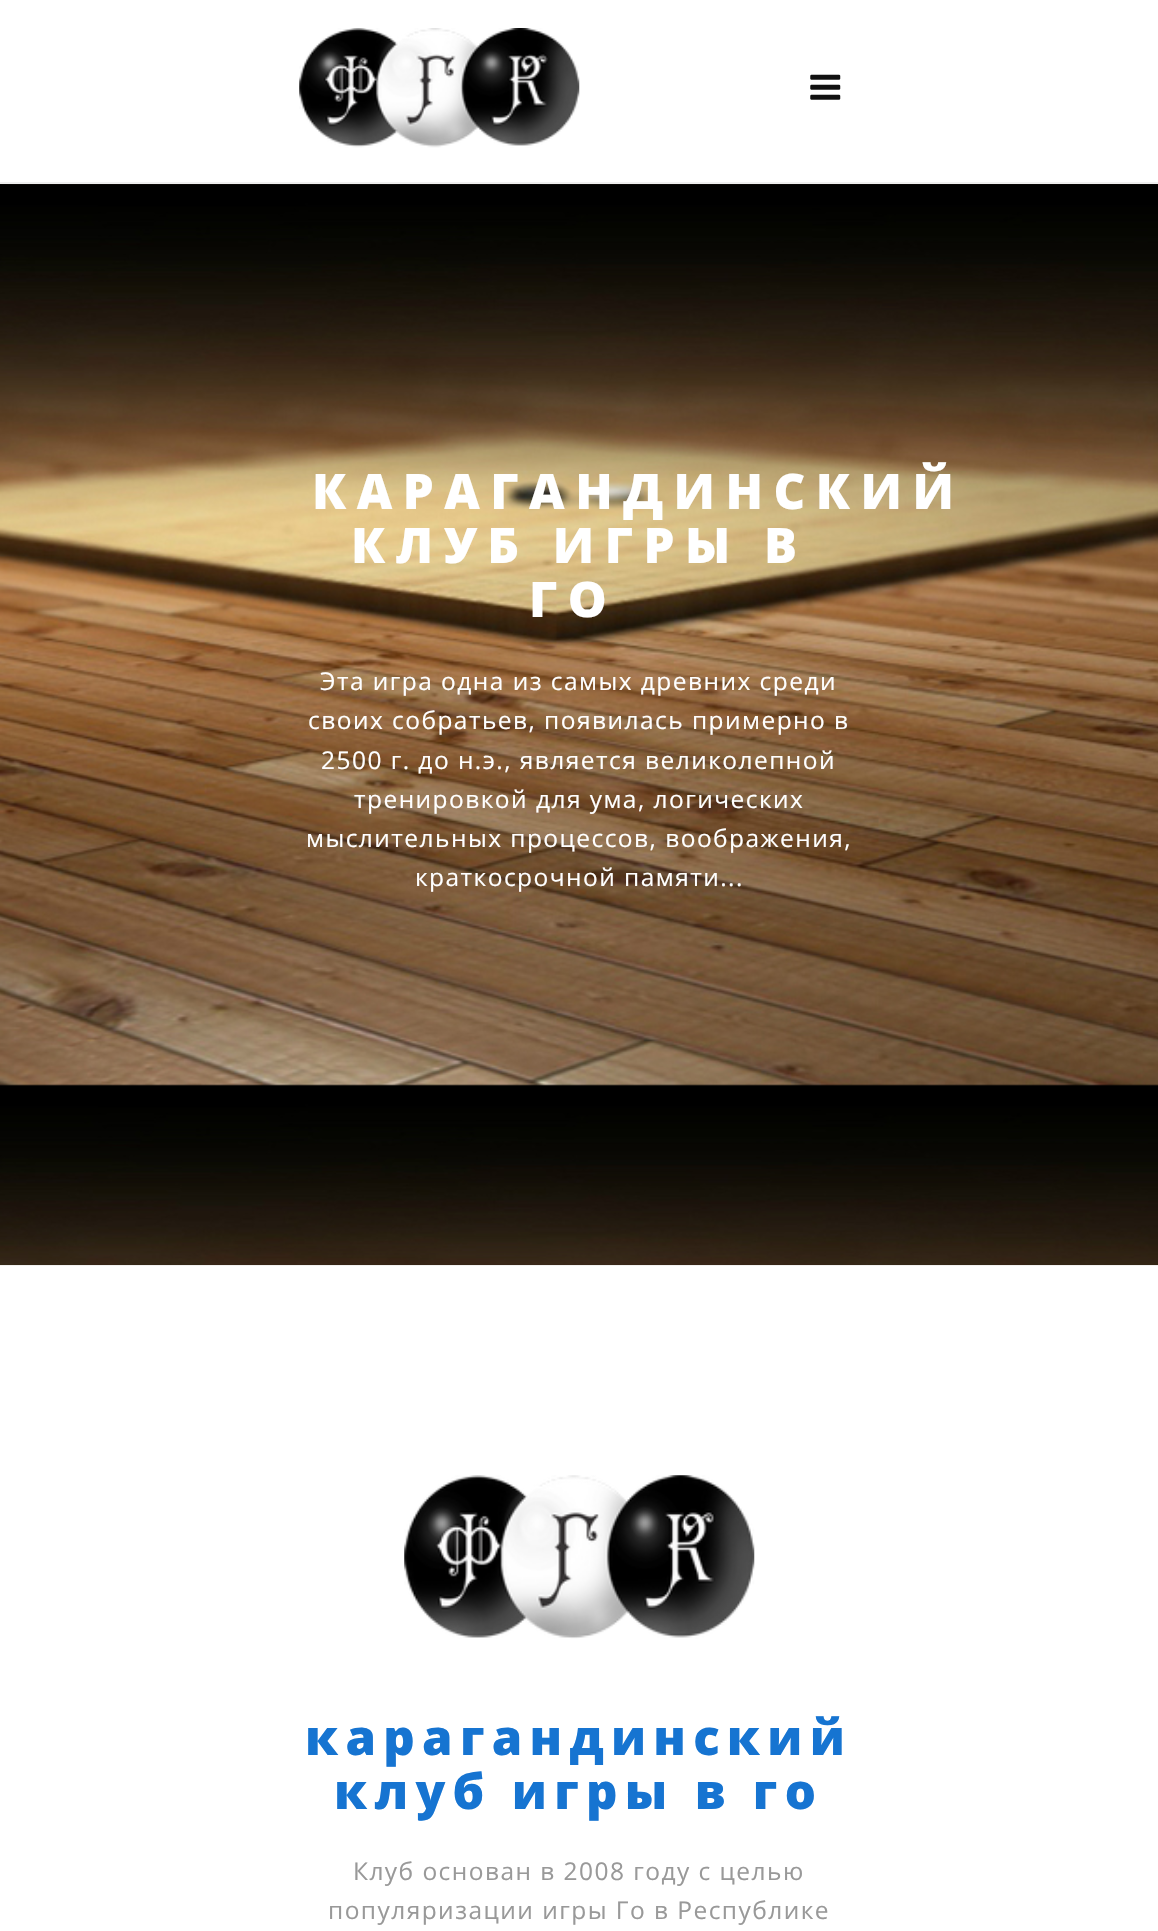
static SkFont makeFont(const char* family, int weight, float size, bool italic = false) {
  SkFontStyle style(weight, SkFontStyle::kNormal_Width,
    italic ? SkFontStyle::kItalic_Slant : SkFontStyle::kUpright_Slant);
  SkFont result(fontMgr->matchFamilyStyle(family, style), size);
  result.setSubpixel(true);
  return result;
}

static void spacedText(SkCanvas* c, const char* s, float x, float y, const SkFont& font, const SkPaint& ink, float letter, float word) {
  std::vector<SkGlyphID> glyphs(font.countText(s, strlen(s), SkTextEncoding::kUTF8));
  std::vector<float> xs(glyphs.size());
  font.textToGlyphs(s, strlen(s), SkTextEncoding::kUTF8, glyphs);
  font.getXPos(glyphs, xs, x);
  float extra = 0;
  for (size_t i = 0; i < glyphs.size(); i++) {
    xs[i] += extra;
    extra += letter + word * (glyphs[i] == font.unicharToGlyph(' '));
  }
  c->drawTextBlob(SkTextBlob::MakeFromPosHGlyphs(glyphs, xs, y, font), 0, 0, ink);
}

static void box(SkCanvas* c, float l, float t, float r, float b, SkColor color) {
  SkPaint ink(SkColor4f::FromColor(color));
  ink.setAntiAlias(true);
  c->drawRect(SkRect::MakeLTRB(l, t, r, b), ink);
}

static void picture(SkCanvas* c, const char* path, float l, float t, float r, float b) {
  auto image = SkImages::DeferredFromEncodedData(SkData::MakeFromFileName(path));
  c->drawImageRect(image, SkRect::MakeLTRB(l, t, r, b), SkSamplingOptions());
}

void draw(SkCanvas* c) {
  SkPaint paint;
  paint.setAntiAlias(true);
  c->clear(0xffffffff);
  box(c, 0, 182, 1158, 184, 0xffefefef);
  picture(c, "img_01.png", 299, 28, 580, 148);
  picture(c, "img_02.png", 810, 74, 841, 100);
  picture(c, "img_03.png", 0, 184, 1158, 1265);
  SkFont face1 = makeFont("Open Sans", 800, 49);
  paint.setColor(0xffffffff);
  spacedText(c, "КАРАГАНДИНСКИЙ", 312, 509, face1, paint, 10.5f, 0);
  spacedText(c, "КЛУБ ИГРЫ В", 351, 563, face1, paint, 10.5f, 0);
  spacedText(c, "ГО", 529, 617, face1, paint, 10.5f, 0);
  SkFont face2 = makeFont("Open Sans", 400, 24.5f);
  spacedText(c, "Эта игра одна из самых древних среди", 320, 690, face2, paint, 1.45f, 0);
  spacedText(c, "своих собратьев, появилась примерно в", 308, 729, face2, paint, 1.45f, 0);
  spacedText(c, "2500 г. до н.э., является великолепной", 321, 769, face2, paint, 1.45f, 0);
  spacedText(c, "тренировкой для ума, логических", 354, 808, face2, paint, 1.45f, 0);
  spacedText(c, "мыслительных процессов, воображения,", 306, 847, face2, paint, 1.45f, 0);
  spacedText(c, "краткосрочной памяти...", 415, 886, face2, paint, 1.45f, 0);
  box(c, 0, 1265, 1158, 1266, 0xfff2f1f0);
  picture(c, "img_04.png", 404, 1475, 755, 1639);
  paint.setColor(0xff1674d1);
  spacedText(c, "карагандинский", 305, 1755, face1, paint, 7.3f, 0);
  spacedText(c, "клуб игры в го", 334, 1809, face1, paint, 7.3f, 0);
  paint.setColor(0xff999999);
  spacedText(c, "Клуб основан в 2008 году с целью", 353, 1880, face2, paint, 1.45f, 0);
  spacedText(c, "популяризации игры Го в Республике", 328, 1919, face2, paint, 1.45f, 0);
}
